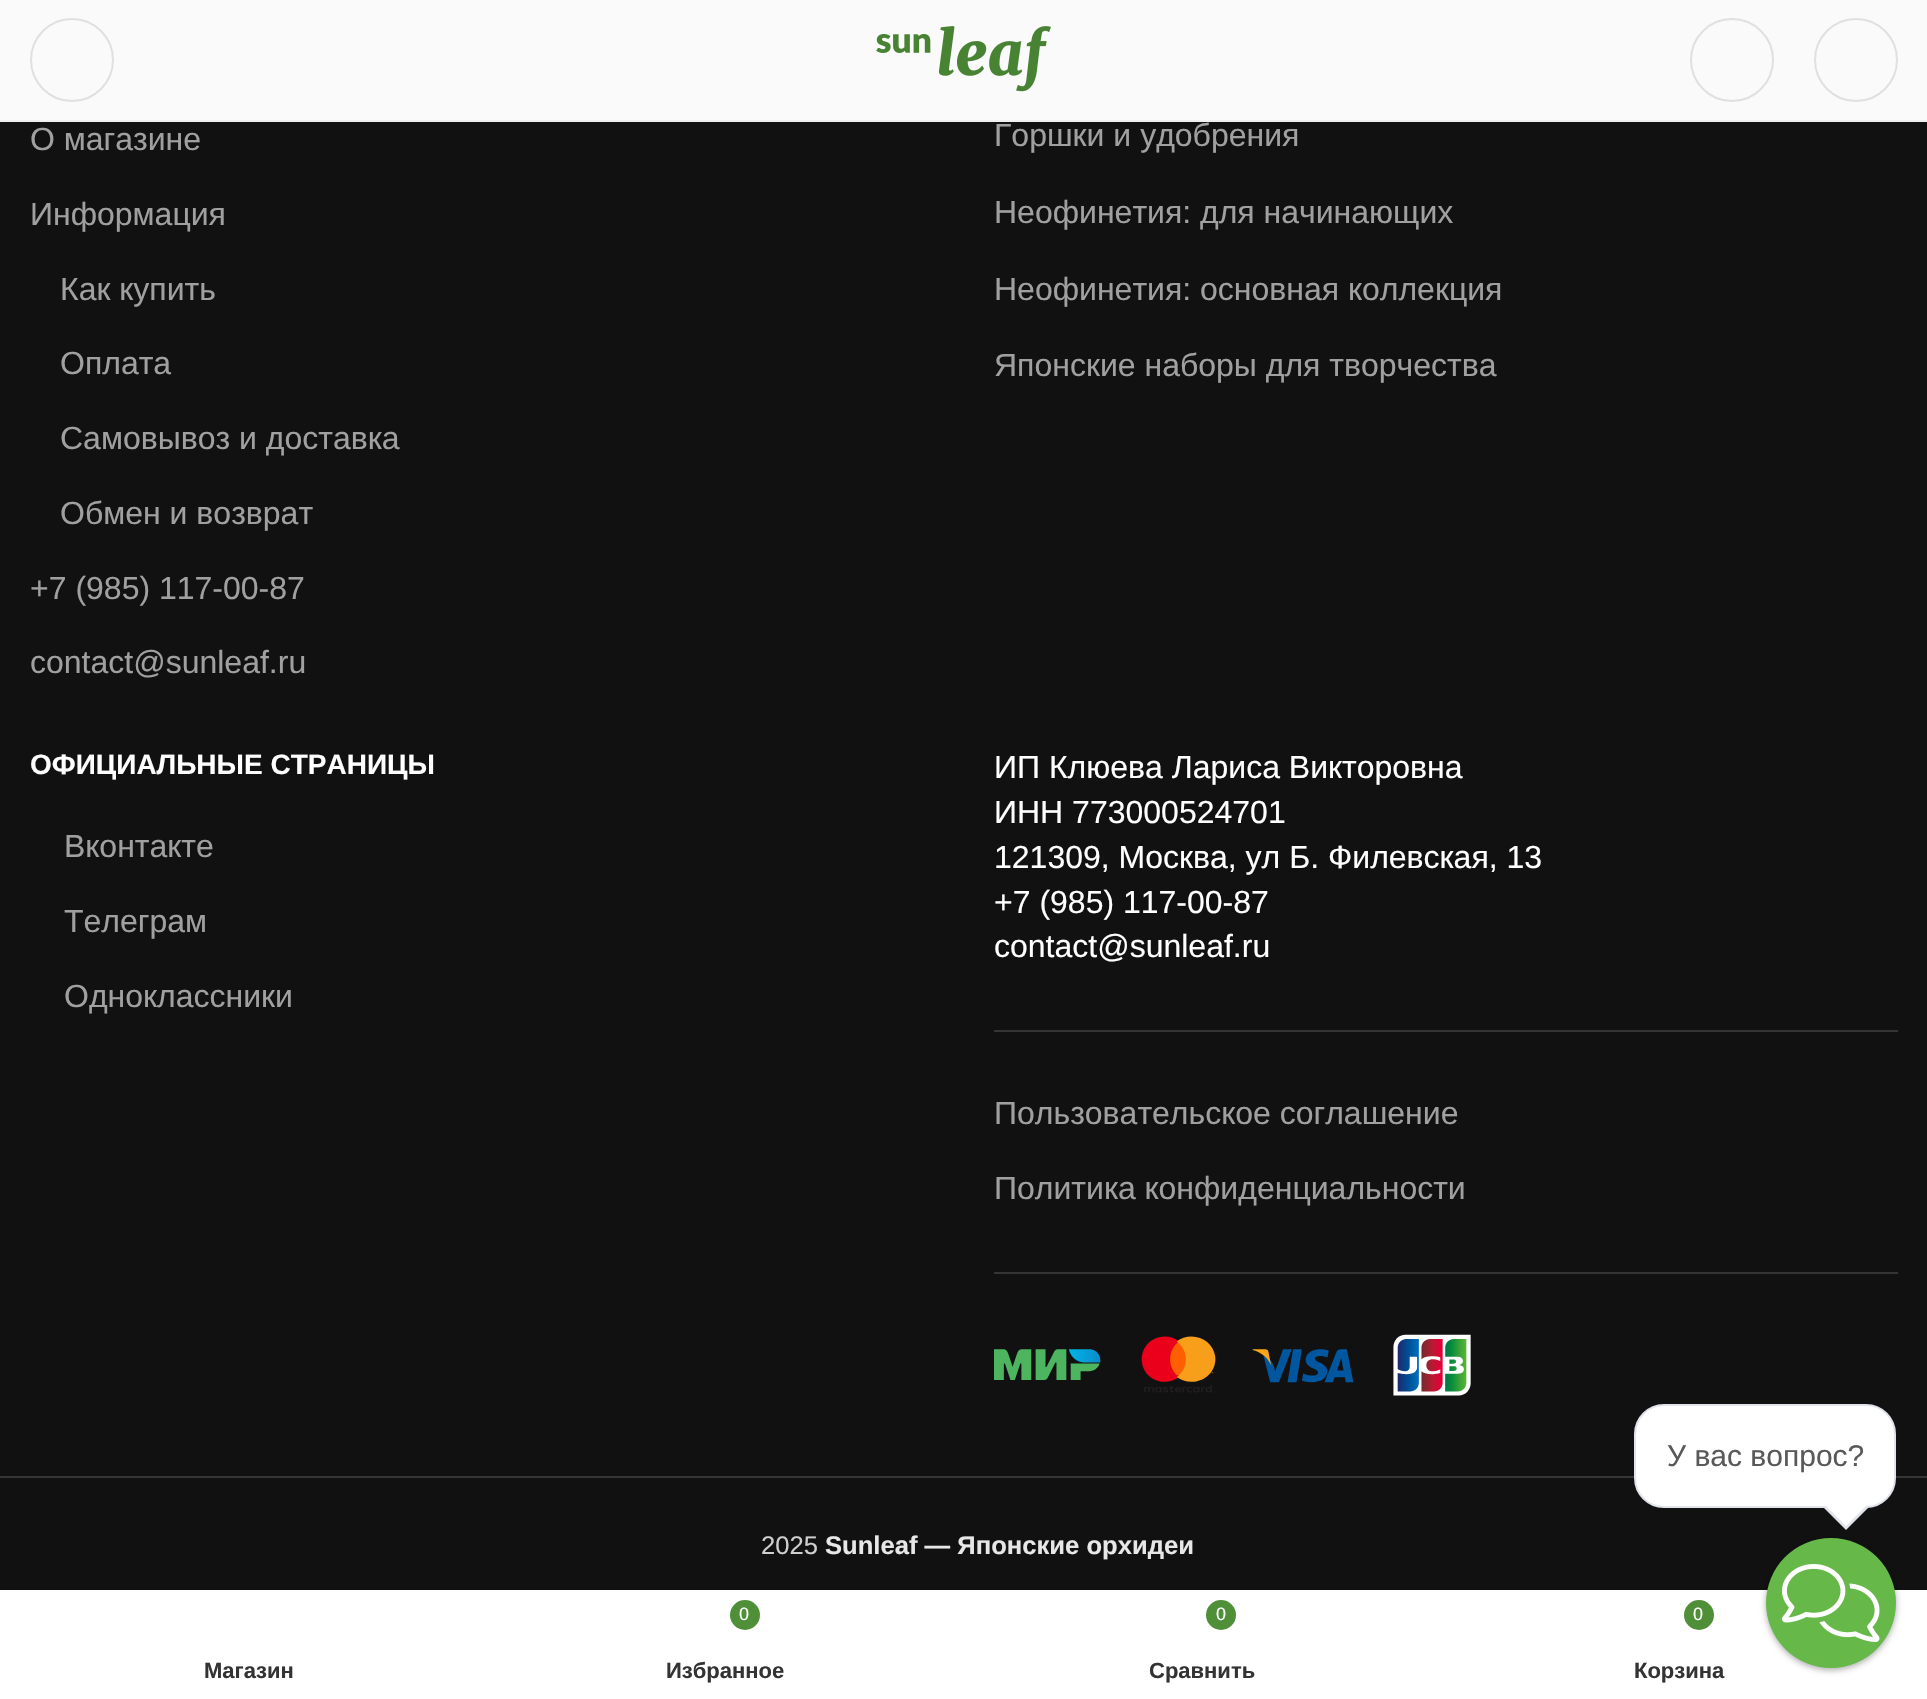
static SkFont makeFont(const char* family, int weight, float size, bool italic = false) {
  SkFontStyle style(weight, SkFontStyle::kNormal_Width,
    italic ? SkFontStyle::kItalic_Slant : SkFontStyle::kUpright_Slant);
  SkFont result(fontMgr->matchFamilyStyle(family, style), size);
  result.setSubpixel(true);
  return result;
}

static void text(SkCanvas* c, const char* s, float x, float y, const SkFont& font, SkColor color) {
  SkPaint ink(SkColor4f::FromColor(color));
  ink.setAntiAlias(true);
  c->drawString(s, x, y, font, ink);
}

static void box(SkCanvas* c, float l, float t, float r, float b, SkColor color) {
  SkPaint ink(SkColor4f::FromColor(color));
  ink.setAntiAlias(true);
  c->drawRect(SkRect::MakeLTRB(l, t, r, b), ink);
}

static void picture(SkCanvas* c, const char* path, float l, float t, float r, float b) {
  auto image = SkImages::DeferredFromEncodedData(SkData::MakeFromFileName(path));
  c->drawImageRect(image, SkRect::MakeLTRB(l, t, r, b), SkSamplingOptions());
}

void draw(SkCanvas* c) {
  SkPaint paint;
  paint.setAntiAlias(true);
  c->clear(0xff111111);
  box(c, 0, 0, 1927, 120, 0xfffafafa);
  box(c, 0, 120, 1927, 122, 0xfff0f0f0);
  paint.setStyle(SkPaint::kStroke_Style);
  paint.setStrokeWidth(2);
  paint.setColor(0xffe0e0e0);
  c->drawCircle(72, 60, 41, paint);
  picture(c, "img_01.png", 876, 26, 1051, 92);
  c->drawCircle(1732, 60, 41, paint);
  c->drawCircle(1856, 60, 41, paint);
  SkFont face1 = makeFont("Liberation Sans", 400, 32);
  text(c, "О магазине", 30, 150, face1, 0xffa0a0a0);
  text(c, "Информация", 30, 225, face1, 0xffa0a0a0);
  text(c, "Как купить", 60, 300, face1, 0xffa0a0a0);
  text(c, "Оплата", 60, 374, face1, 0xffa0a0a0);
  text(c, "Самовывоз и доставка", 60, 449, face1, 0xffa0a0a0);
  text(c, "Обмен и возврат", 60, 524, face1, 0xffa0a0a0);
  text(c, "+7 (985) 117-00-87", 30, 599, face1, 0xffa0a0a0);
  text(c, "contact@sunleaf.ru", 30, 673, face1, 0xffa0a0a0);
  text(c, "Горшки и удобрения", 994, 146, face1, 0xffa0a0a0);
  text(c, "Неофинетия: для начинающих", 994, 223, face1, 0xffa0a0a0);
  text(c, "Неофинетия: основная коллекция", 994, 300, face1, 0xffa0a0a0);
  text(c, "Японские наборы для творчества", 994, 376, face1, 0xffa0a0a0);
  SkFont face2 = makeFont("Liberation Sans", 700, 28);
  text(c, "ОФИЦИАЛЬНЫЕ СТРАНИЦЫ", 30, 774, face2, 0xffffffff);
  text(c, "Вконтакте", 64, 857, face1, 0xffa0a0a0);
  text(c, "Телеграм", 64, 932, face1, 0xffa0a0a0);
  text(c, "Одноклассники", 64, 1007, face1, 0xffa0a0a0);
  box(c, 994, 1030, 1898, 1032, 0xff353535);
  text(c, "ИП Клюева Лариса Викторовна", 994, 778, face1, 0xffffffff);
  text(c, "ИНН 773000524701", 994, 823, face1, 0xffffffff);
  text(c, "121309, Москва, ул Б. Филевская, 13", 994, 868, face1, 0xffffffff);
  text(c, "+7 (985) 117-00-87", 994, 913, face1, 0xffffffff);
  text(c, "contact@sunleaf.ru", 994, 957, face1, 0xffffffff);
  box(c, 994, 1272, 1898, 1274, 0xff353535);
  text(c, "Пользовательское соглашение", 994, 1124, face1, 0xffa0a0a0);
  text(c, "Политика конфиденциальности", 994, 1199, face1, 0xffa0a0a0);
  picture(c, "img_02.png", 994, 1334, 1471, 1396);
  box(c, 0, 1476, 1927, 1478, 0xff353535);
  SkFont face3 = makeFont("Liberation Sans", 400, 25.6f);
  text(c, "2025", 761, 1554, face3, 0xffcfcfcf);
  SkFont face4 = makeFont("Liberation Sans", 700, 25.6f);
  text(c, "Sunleaf — Японские орхидеи", 825, 1554, face4, 0xffe7e7e7);
  paint.setStyle(SkPaint::kFill_Style);
  paint.setColor(0xffffffff);
  c->drawRoundRect(SkRect::MakeLTRB(1635, 1405, 1895, 1507), 29, 29, paint);
  paint.setStyle(SkPaint::kStroke_Style);
  paint.setColor(0xffe1e5eb);
  c->drawRoundRect(SkRect::MakeLTRB(1635, 1405, 1895, 1507), 29, 29, paint);
  SkFont face5 = makeFont("Liberation Sans", 400, 30);
  text(c, "У вас вопрос?", 1667, 1466, face5, 0xff595959);
  paint.setStyle(SkPaint::kFill_Style);
  c->drawPath(SkPathBuilder().moveTo(1822, 1506).lineTo(1870, 1506).lineTo(1846, 1530).close().detach(), paint);
  paint.setColor(0xffffffff);
  c->drawPath(SkPathBuilder().moveTo(1826, 1506).lineTo(1866, 1506).lineTo(1846, 1526).close().detach(), paint);
  box(c, 0, 1590, 1927, 1699, 0xffffffff);
  paint.setColor(0x54000000);
  paint.setMaskFilter(SkMaskFilter::MakeBlur(kNormal_SkBlurStyle, 3));
  c->drawRoundRect(SkRect::MakeLTRB(1766, 1540, 1896, 1670), 65, 65, paint);
  paint.setMaskFilter(nullptr);
  paint.setColor(0xff66b849);
  c->drawCircle(1831, 1603, 65, paint);
  picture(c, "img_03.png", 1782, 1564, 1880, 1642);
  SkFont face6 = makeFont("Liberation Sans", 700, 22);
  text(c, "Магазин", 204, 1678, face6, 0xff333333);
  paint.setColor(0xff4f8f38);
  c->drawCircle(745, 1615, 15, paint);
  SkFont face7 = makeFont("Liberation Sans", 400, 18);
  text(c, "0", 739, 1620, face7, 0xffffffff);
  text(c, "Избранное", 666, 1678, face6, 0xff333333);
  c->drawCircle(1221, 1615, 15, paint);
  text(c, "0", 1216, 1620, face7, 0xffffffff);
  text(c, "Сравнить", 1149, 1678, face6, 0xff333333);
  c->drawCircle(1699, 1615, 15, paint);
  text(c, "0", 1693, 1620, face7, 0xffffffff);
  text(c, "Корзина", 1634, 1678, face6, 0xff333333);
}
